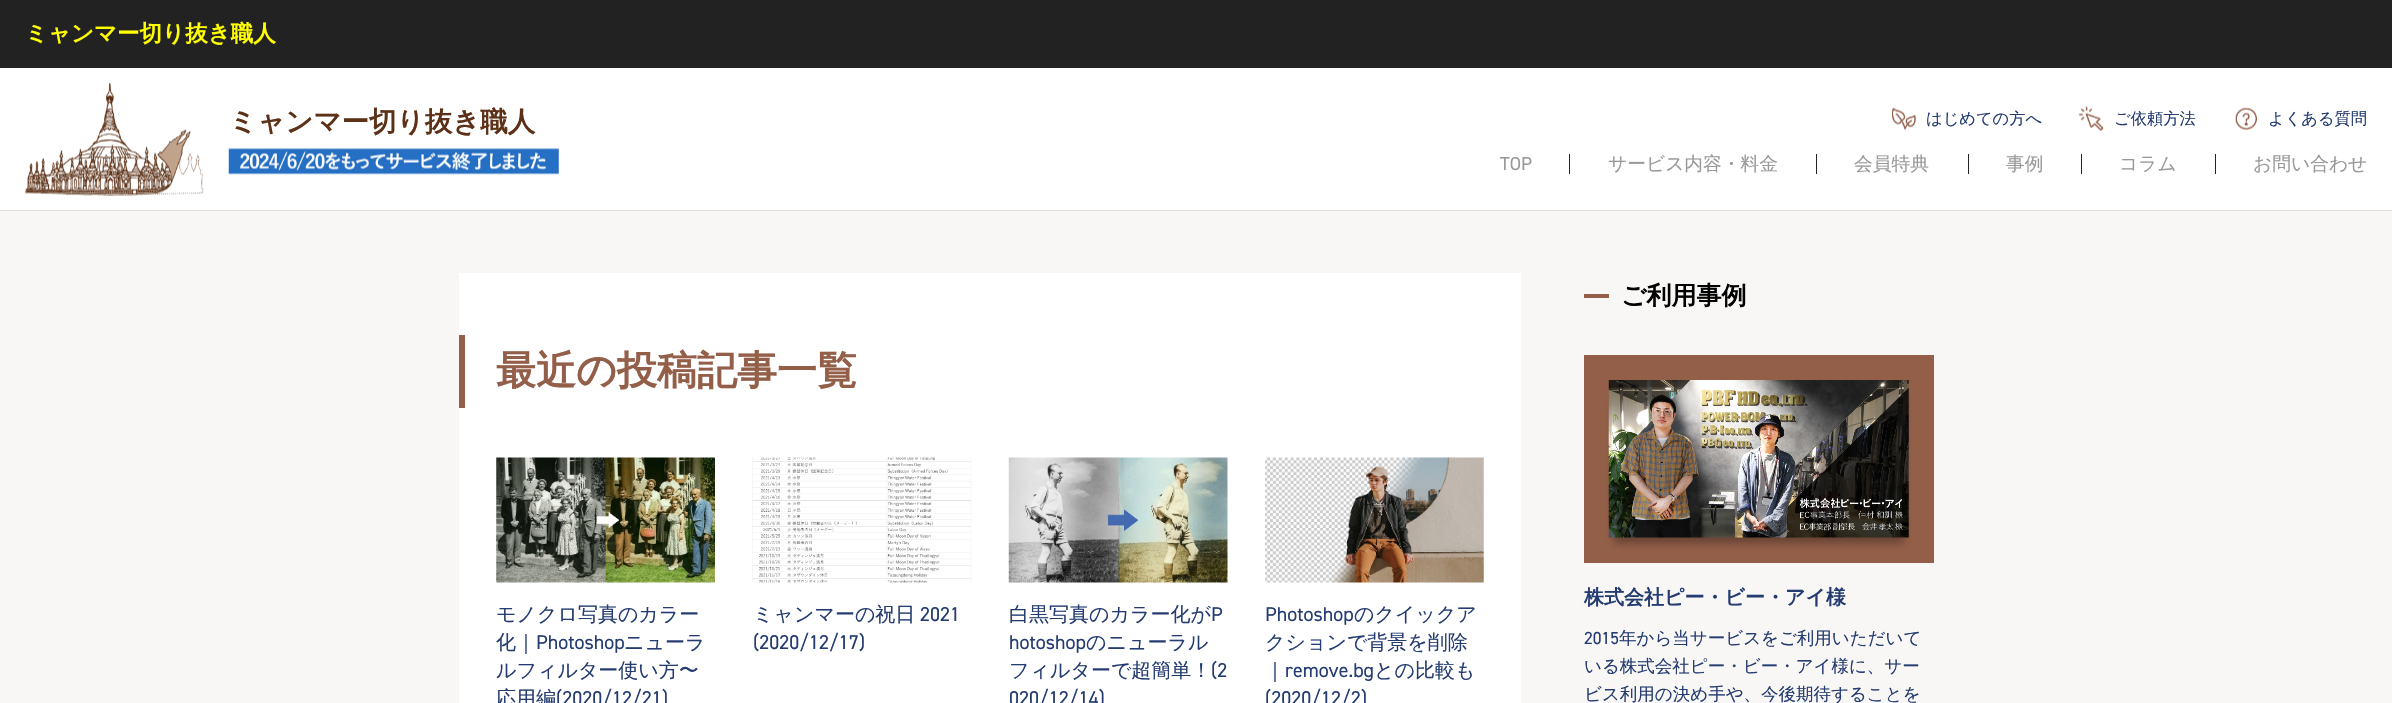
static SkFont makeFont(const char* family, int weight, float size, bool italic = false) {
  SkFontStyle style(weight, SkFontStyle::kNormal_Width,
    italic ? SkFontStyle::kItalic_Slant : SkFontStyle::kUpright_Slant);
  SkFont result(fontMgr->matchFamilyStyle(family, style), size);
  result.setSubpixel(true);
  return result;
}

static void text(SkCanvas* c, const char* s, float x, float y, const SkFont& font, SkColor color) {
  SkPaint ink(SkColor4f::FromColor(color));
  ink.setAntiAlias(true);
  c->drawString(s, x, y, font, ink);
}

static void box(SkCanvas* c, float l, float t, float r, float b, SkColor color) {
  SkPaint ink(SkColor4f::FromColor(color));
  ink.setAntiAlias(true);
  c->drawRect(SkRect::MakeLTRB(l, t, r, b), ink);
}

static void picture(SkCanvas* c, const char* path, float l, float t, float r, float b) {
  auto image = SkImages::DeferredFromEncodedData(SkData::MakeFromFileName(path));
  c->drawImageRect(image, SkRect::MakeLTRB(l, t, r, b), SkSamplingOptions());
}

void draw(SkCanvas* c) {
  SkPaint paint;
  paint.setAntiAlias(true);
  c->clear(0xfff8f7f5);
  box(c, 0, 0, 2392, 68, 0xff222222);
  SkFont face1 = makeFont("WenQuanYi Zen Hei", 700, 22.5f);
  text(c, "ミャンマー切り抜き職人", 25, 41, face1, 0xffffff00);
  box(c, 0, 68, 2392, 210, 0xffffffff);
  paint.setColor(0xffdfdedd);
  c->drawPath(SkPathBuilder().moveTo(0, 210).lineTo(0, 211).lineTo(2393, 211).lineTo(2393, 69).lineTo(2392, 69).lineTo(2392, 210).close().detach(), paint);
  picture(c, "img_01.png", 25, 83, 204, 196);
  SkFont face2 = makeFont("WenQuanYi Zen Hei", 700, 27.5f);
  text(c, "ミャンマー切り抜き職人", 229, 131, face2, 0xff5c3117);
  picture(c, "img_02.png", 228, 148, 559, 175);
  picture(c, "img_03.png", 1892, 107, 1916, 130);
  SkFont face3 = makeFont("WenQuanYi Zen Hei", 500, 16.25f);
  text(c, "はじめての方へ", 1926, 124, face3, 0xff243c71);
  picture(c, "img_04.png", 2078, 106, 2104, 131);
  text(c, "ご依頼方法", 2114, 124, face3, 0xff243c71);
  picture(c, "img_05.png", 2235, 107, 2257, 130);
  text(c, "よくある質問", 2268, 124, face3, 0xff243c71);
  box(c, 1569, 154, 1570, 174, 0xff222222);
  SkFont face4 = makeFont("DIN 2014", 400, 18.75f);
  text(c, "TOP", 1500, 170, face4, 0xff999999);
  box(c, 1816, 154, 1817, 174, 0xff222222);
  SkFont face5 = makeFont("WenQuanYi Zen Hei", 500, 18.75f);
  text(c, "サービス内容・料金", 1608, 170, face5, 0xff999999);
  box(c, 1968, 154, 1969, 174, 0xff222222);
  text(c, "会員特典", 1854, 170, face5, 0xff999999);
  box(c, 2081, 154, 2082, 174, 0xff222222);
  text(c, "事例", 2006, 170, face5, 0xff999999);
  box(c, 2215, 154, 2216, 174, 0xff222222);
  text(c, "コラム", 2119, 170, face5, 0xff999999);
  text(c, "お問い合わせ", 2253, 170, face5, 0xff999999);
  box(c, 459, 273, 1521, 703, 0xffffffff);
  box(c, 459, 335, 465, 408, 0xff935f49);
  SkFont face6 = makeFont("WenQuanYi Zen Hei", 700, 40);
  text(c, "最近の投稿記事一覧", 496, 384, face6, 0xff935f49);
  picture(c, "img_06.png", 496, 457, 715, 583);
  SkFont face7 = makeFont("WenQuanYi Zen Hei", 500, 20);
  text(c, "モノクロ写真のカラー", 496, 621, face7, 0xff243c71);
  text(c, "化｜", 496, 649, face7, 0xff243c71);
  SkFont face8 = makeFont("DIN 2014", 400, 20);
  text(c, "Photoshop", 536, 649, face8, 0xff243c71);
  text(c, "ニューラ", 624, 649, face7, 0xff243c71);
  text(c, "ルフィルター使い方〜", 496, 677, face7, 0xff243c71);
  text(c, "応用編", 496, 705, face7, 0xff243c71);
  text(c, "(2020/12/21)", 556, 705, face8, 0xff243c71);
  picture(c, "img_07.png", 752, 457, 972, 583);
  text(c, "ミャンマーの祝日", 753, 621, face7, 0xff243c71);
  text(c, "2021", 920, 621, face8, 0xff243c71);
  text(c, "(2020/12/17)", 753, 649, face8, 0xff243c71);
  picture(c, "img_08.png", 1008, 457, 1228, 583);
  text(c, "白黒写真のカラー化が", 1009, 621, face7, 0xff243c71);
  text(c, "P", 1211, 621, face8, 0xff243c71);
  text(c, "hotoshop", 1009, 649, face8, 0xff243c71);
  text(c, "のニューラル", 1086, 649, face7, 0xff243c71);
  text(c, "フィルターで超簡単！", 1009, 677, face7, 0xff243c71);
  text(c, "(2", 1211, 677, face8, 0xff243c71);
  text(c, "020/12/14)", 1009, 705, face8, 0xff243c71);
  picture(c, "img_09.png", 1265, 457, 1484, 583);
  text(c, "Photoshop", 1265, 621, face8, 0xff243c71);
  text(c, "のクイックア", 1354, 621, face7, 0xff243c71);
  text(c, "クションで背景を削除", 1265, 649, face7, 0xff243c71);
  text(c, "｜", 1265, 677, face7, 0xff243c71);
  text(c, "remove.bg", 1285, 677, face8, 0xff243c71);
  text(c, "との比較も", 1374, 677, face7, 0xff243c71);
  text(c, "(2020/12/2)", 1265, 705, face8, 0xff243c71);
  box(c, 1584, 294, 1609, 298, 0xff935f49);
  SkFont face9 = makeFont("WenQuanYi Zen Hei", 700, 25);
  text(c, "ご利用事例", 1621, 304, face9, 0xff000000);
  box(c, 1584, 355, 1934, 563, 0xff935f49);
  paint.setColor(0x4d000000);
  paint.setMaskFilter(SkMaskFilter::MakeBlur(kNormal_SkBlurStyle, 4));
  c->drawRect(SkRect::MakeLTRB(1614, 395, 1904, 543), paint);
  paint.setMaskFilter(nullptr);
  picture(c, "img_10.png", 1608, 380, 1909, 538);
  SkFont face10 = makeFont("WenQuanYi Zen Hei", 700, 20);
  text(c, "株式会社ピー・ビー・アイ様", 1584, 604, face10, 0xff243c71);
  SkFont face11 = makeFont("DIN 2014", 400, 17.5f);
  text(c, "2015", 1584, 644, face11, 0xff243c71);
  SkFont face12 = makeFont("WenQuanYi Zen Hei", 500, 17.5f);
  text(c, "年から当サービスをご利用いただいて", 1619, 644, face12, 0xff243c71);
  text(c, "いる株式会社ピー・ビー・アイ様に、サー", 1584, 672, face12, 0xff243c71);
  text(c, "ビス利用の決め手や、今後期待することを", 1584, 700, face12, 0xff243c71);
}
